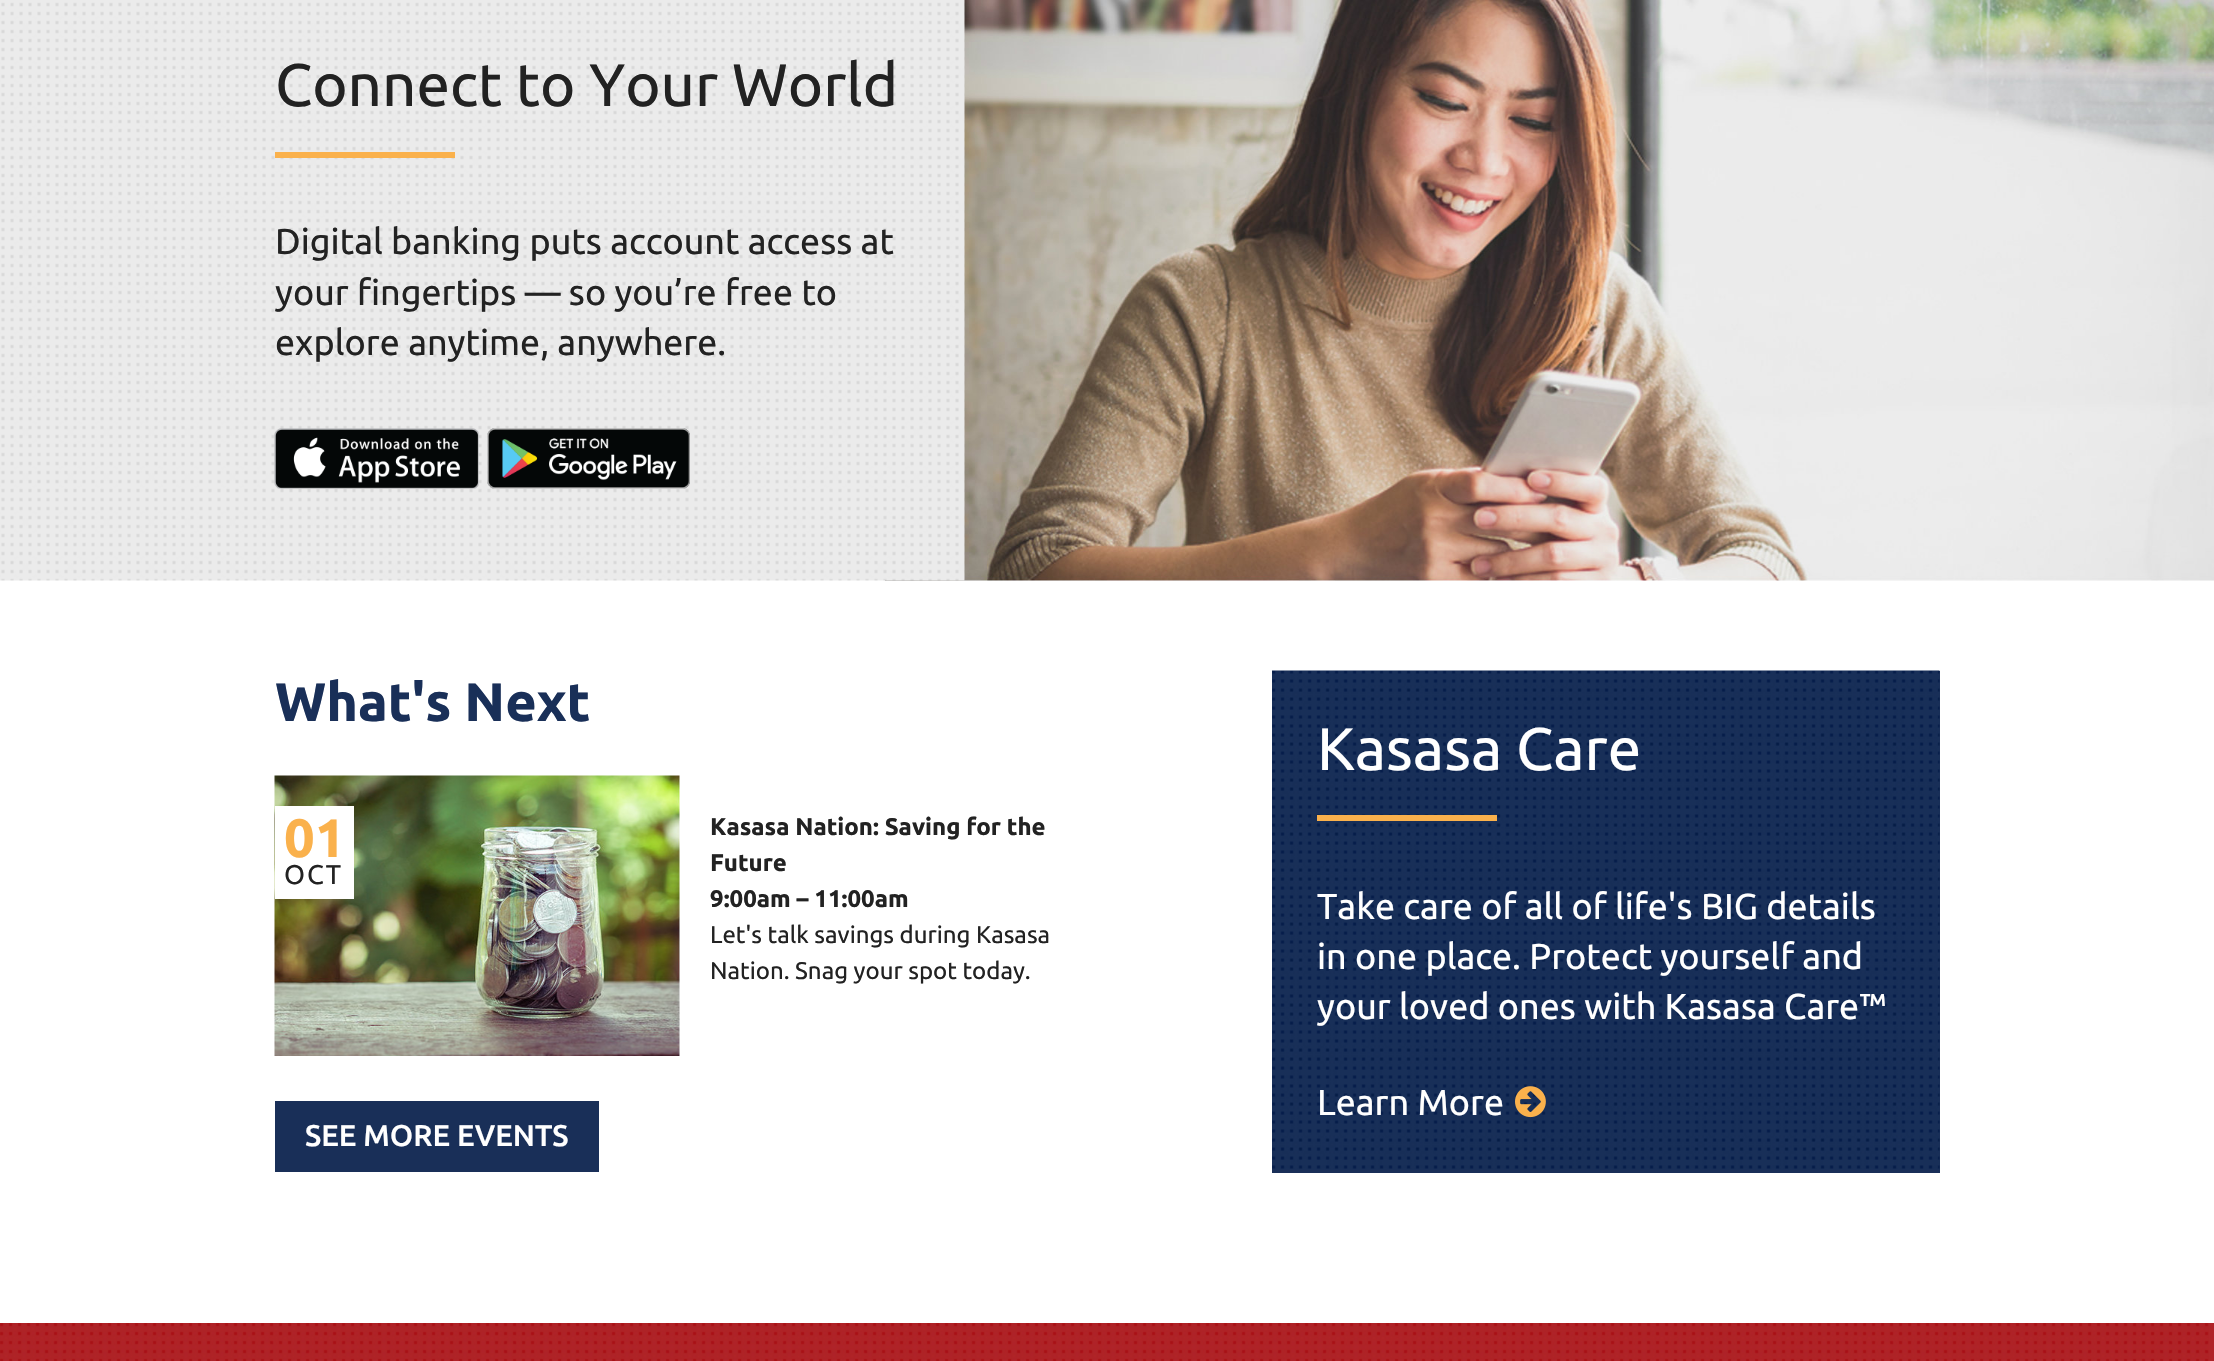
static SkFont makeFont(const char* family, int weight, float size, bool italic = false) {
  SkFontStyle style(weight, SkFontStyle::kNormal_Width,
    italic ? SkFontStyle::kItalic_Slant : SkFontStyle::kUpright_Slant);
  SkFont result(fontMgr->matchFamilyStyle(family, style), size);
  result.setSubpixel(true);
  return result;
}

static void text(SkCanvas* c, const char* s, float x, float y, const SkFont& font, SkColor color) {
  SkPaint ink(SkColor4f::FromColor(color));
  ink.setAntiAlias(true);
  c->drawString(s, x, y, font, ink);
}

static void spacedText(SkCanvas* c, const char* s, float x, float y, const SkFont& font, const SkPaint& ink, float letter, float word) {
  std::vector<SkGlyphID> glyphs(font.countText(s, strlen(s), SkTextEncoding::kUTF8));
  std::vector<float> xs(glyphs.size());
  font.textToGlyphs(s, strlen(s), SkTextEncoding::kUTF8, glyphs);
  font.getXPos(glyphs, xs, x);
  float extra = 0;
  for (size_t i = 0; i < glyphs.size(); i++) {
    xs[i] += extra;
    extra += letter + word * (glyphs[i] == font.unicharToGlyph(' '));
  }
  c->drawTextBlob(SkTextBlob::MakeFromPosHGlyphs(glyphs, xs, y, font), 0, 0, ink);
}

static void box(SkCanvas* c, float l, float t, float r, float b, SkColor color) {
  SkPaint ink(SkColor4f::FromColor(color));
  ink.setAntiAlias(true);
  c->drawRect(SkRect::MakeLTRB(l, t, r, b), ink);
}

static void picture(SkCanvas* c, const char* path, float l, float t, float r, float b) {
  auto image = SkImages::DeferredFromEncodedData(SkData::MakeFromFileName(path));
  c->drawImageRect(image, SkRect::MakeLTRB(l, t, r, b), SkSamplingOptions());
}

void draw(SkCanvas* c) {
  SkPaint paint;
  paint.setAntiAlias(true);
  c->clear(0xffffffff);
  picture(c, "img_04.png", 885, 0, 2214, 581);
  picture(c, "img_01.png", 0, 0, 965, 581);
  SkFont face1 = makeFont("Ubuntu", 400, 60);
  text(c, "Connect to Your World", 275, 106, face1, 0xff222222);
  box(c, 275, 152, 455, 158, 0xfffab14c);
  SkFont face2 = makeFont("Ubuntu", 400, 36);
  text(c, "Digital banking puts account access at", 275, 254, face2, 0xff222222);
  text(c, "your fingertips — so you’re free to", 275, 305, face2, 0xff222222);
  text(c, "explore anytime, anywhere.", 275, 355, face2, 0xff222222);
  picture(c, "img_02.png", 274, 428, 479, 489);
  picture(c, "img_03.png", 487, 428, 690, 489);
  SkFont face3 = makeFont("Ubuntu", 700, 54);
  text(c, "What's Next", 275, 721, face3, 0xff192f58);
  picture(c, "img_05.png", 274, 775, 680, 1056);
  box(c, 275, 806, 354, 899, 0xffffffff);
  text(c, "01", 284, 857, face3, 0xfffab14c);
  SkFont face4 = makeFont("Ubuntu", 400, 27);
  paint.setColor(0xff222222);
  spacedText(c, "OCT", 284, 884, face4, paint, 2, 0);
  SkFont face5 = makeFont("Ubuntu", 700, 24);
  text(c, "Kasasa Nation: Saving for the", 710, 835, face5, 0xff222222);
  text(c, "Future", 710, 871, face5, 0xff222222);
  text(c, "9:00am – 11:00am", 710, 907, face5, 0xff222222);
  SkFont face6 = makeFont("Ubuntu", 400, 24);
  text(c, "Let's talk savings during Kasasa", 710, 943, face6, 0xff222222);
  text(c, "Nation. Snag your spot today.", 710, 979, face6, 0xff222222);
  box(c, 275, 1101, 599, 1172, 0xff192f58);
  SkFont face7 = makeFont("Ubuntu", 500, 30);
  text(c, "SEE MORE EVENTS", 305, 1146, face7, 0xffffffff);
  box(c, 1272, 671, 1940, 1173, 0xff192f58);
  picture(c, "img_06.png", 1272, 670, 1940, 1169);
  text(c, "Kasasa Care", 1317, 770, face1, 0xffffffff);
  box(c, 1317, 815, 1497, 821, 0xfffab14c);
  text(c, "Take care of all of life's BIG details", 1317, 919, face2, 0xffffffff);
  text(c, "in one place. Protect yourself and", 1317, 969, face2, 0xffffffff);
  text(c, "your loved ones with Kasasa Care™", 1317, 1019, face2, 0xffffffff);
  text(c, "Learn More", 1317, 1115, face2, 0xffffffff);
  picture(c, "img_07.png", 1515, 1086, 1546, 1118);
  box(c, 2209, 1323, 2214, 1361, 0xffaf2428);
  picture(c, "img_08.png", 0, 1323, 2209, 1361);
}
